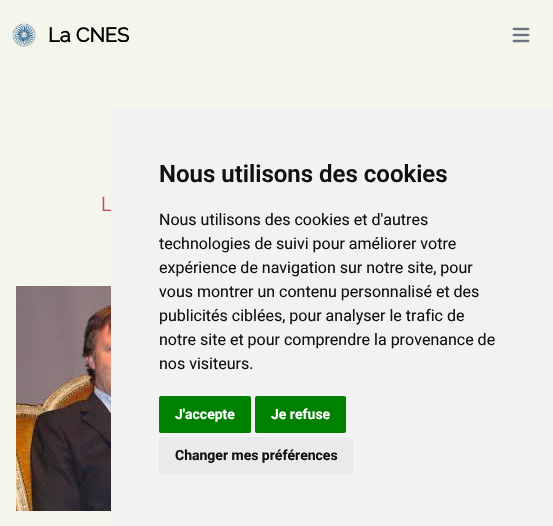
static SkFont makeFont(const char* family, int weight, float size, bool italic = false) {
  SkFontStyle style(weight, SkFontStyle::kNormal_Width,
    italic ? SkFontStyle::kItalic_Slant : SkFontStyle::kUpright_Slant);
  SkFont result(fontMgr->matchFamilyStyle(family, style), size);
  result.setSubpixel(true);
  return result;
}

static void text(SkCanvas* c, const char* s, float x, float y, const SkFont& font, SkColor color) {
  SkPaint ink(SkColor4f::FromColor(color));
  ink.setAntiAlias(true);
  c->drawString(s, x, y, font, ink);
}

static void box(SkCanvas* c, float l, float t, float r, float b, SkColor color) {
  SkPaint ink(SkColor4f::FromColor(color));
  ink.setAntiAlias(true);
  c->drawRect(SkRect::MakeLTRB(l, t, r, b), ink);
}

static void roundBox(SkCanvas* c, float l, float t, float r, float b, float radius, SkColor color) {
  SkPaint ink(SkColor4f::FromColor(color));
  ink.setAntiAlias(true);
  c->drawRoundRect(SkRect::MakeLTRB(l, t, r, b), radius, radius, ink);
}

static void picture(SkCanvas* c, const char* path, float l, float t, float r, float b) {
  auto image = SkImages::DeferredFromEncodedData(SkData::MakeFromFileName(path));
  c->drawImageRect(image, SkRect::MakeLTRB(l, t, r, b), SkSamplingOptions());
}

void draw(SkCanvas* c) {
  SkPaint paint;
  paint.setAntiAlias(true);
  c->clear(0xfff5f6eb);
  picture(c, "img_01.png", 12, 23, 36, 47);
  SkFont face1 = makeFont("Raleway", 700, 20);
  text(c, "La CNES", 48, 42, face1, 0xff000000);
  picture(c, "img_02.png", 512, 27, 530, 43);
  SkFont face2 = makeFont("Raleway", 100, 20);
  text(c, "L", 101, 211, face2, 0xffc94655);
  picture(c, "img_03.png", 16, 286, 111, 511);
  box(c, 111, 108, 553, 526, 0xfff2f2f2);
  SkFont face3 = makeFont("Roboto", 600, 24);
  text(c, "Nous utilisons des cookies", 159, 182, face3, 0xff111111);
  SkFont face4 = makeFont("Roboto", 400, 16);
  text(c, "Nous utilisons des cookies et d'autres", 159, 225, face4, 0xff111111);
  text(c, "technologies de suivi pour améliorer votre", 159, 249, face4, 0xff111111);
  text(c, "expérience de navigation sur notre site, pour", 159, 273, face4, 0xff111111);
  text(c, "vous montrer un contenu personnalisé et des", 159, 297, face4, 0xff111111);
  text(c, "publicités ciblées, pour analyser le trafic de", 159, 321, face4, 0xff111111);
  text(c, "notre site et pour comprendre la provenance de", 159, 345, face4, 0xff111111);
  text(c, "nos visiteurs.", 159, 369, face4, 0xff111111);
  roundBox(c, 159, 396, 251, 433, 2, 0xff008000);
  SkFont face5 = makeFont("Roboto", 700, 14);
  text(c, "J'accepte", 175, 419, face5, 0xffffffff);
  roundBox(c, 255, 396, 346, 433, 2, 0xff008000);
  text(c, "Je refuse", 271, 419, face5, 0xffffffff);
  roundBox(c, 159, 437, 353, 474, 2, 0xffeaeaea);
  text(c, "Changer mes préférences", 175, 460, face5, 0xff111111);
}
